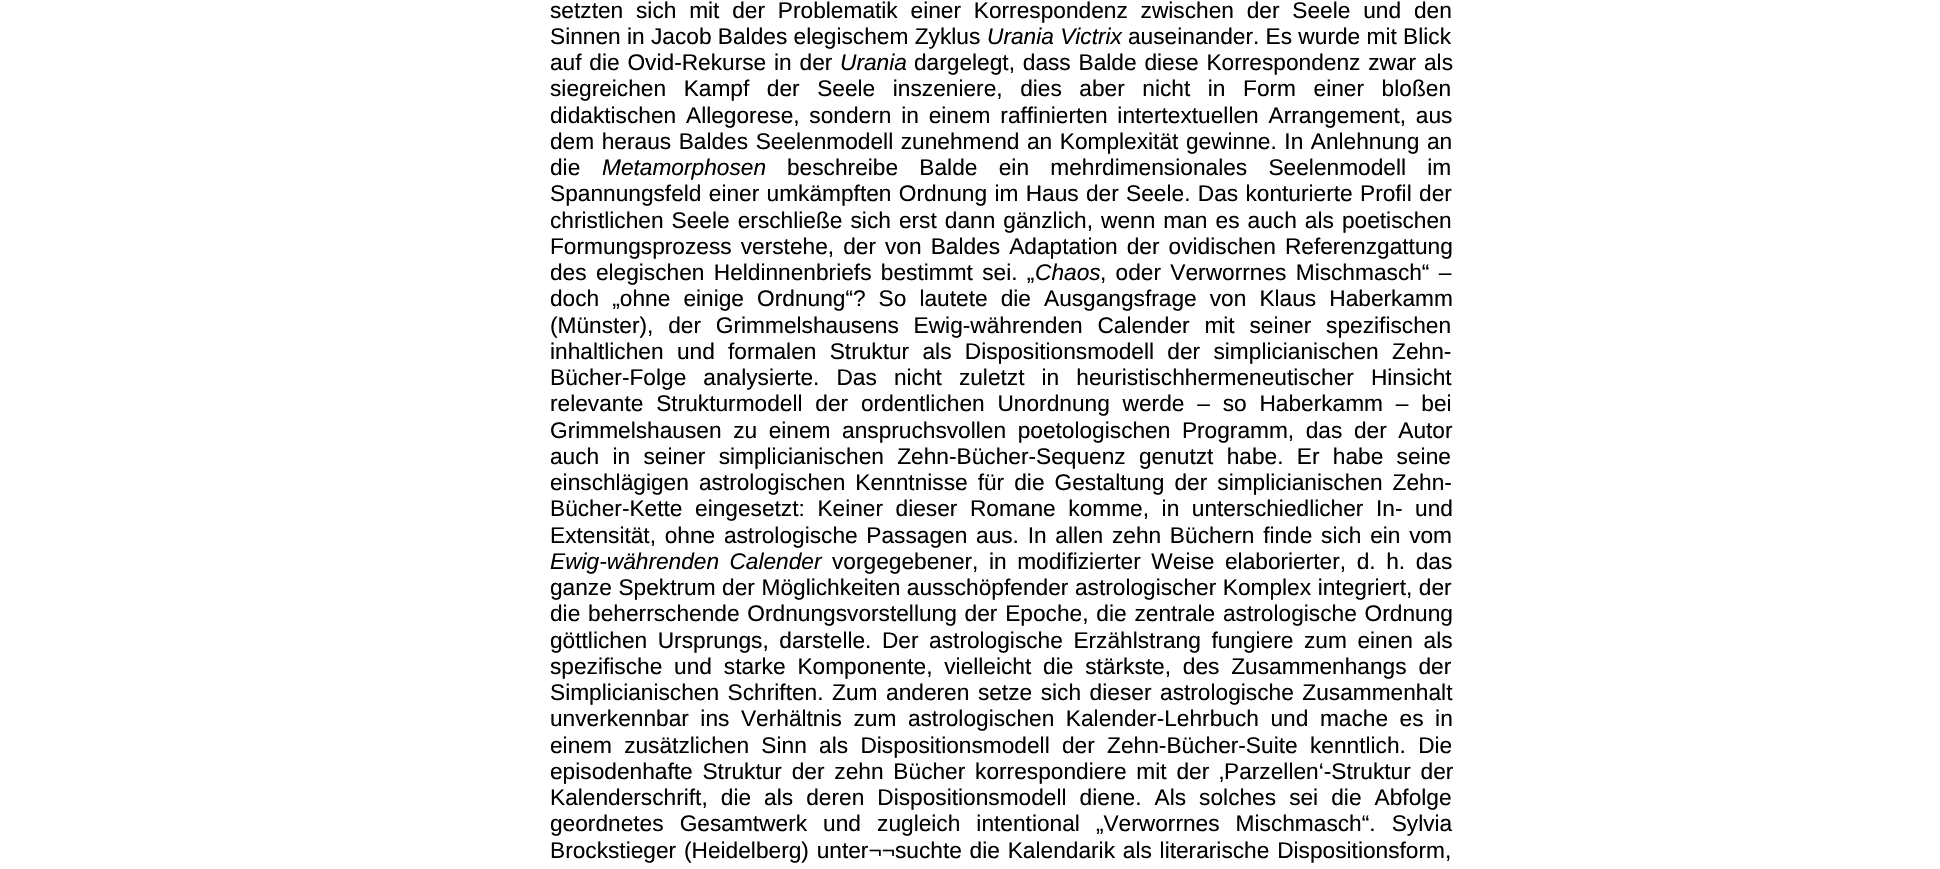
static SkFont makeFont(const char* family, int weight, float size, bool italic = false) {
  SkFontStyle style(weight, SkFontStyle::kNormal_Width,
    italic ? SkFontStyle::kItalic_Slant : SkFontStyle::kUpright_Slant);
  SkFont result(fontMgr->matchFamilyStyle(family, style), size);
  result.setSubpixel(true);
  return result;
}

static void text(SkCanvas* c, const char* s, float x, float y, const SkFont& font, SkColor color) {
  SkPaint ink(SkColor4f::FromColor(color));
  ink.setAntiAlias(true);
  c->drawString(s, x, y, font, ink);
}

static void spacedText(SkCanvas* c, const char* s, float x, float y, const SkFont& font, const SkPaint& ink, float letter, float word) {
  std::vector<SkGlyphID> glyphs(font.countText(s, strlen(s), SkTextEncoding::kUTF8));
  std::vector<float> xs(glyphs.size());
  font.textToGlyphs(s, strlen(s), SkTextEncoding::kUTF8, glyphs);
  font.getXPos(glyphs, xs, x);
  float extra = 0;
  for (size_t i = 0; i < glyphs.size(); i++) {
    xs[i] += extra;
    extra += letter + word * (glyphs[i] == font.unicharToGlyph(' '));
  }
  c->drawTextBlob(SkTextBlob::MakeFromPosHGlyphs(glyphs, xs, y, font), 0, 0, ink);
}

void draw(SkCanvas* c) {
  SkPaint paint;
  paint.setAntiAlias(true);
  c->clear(0xffffffff);
  SkFont face1 = makeFont("Liberation Sans", 400, 22.7f);
  paint.setColor(0xff000000);
  spacedText(c, "setzten sich mit der Problematik einer Korrespondenz zwischen der Seele und den", 550, 18, face1, paint, 0, 6.5f);
  text(c, "Sinnen in Jacob Baldes elegischem Zyklus", 550, 44, face1, 0xff000000);
  SkFont face2 = makeFont("Liberation Sans", 400, 22.7f, true);
  text(c, "Urania Victrix", 987, 44, face2, 0xff000000);
  text(c, "auseinander. Es wurde mit Blick", 1128, 44, face1, 0xff000000);
  spacedText(c, "auf die Ovid-Rekurse in der", 550, 70, face1, paint, 0, 1.5f);
  text(c, "Urania", 840, 70, face2, 0xff000000);
  spacedText(c, "dargelegt, dass Balde diese Korrespondenz zwar als", 914, 70, face1, paint, 0, 1.5f);
  spacedText(c, "siegreichen Kampf der Seele inszeniere, dies aber nicht in Form einer bloßen", 550, 96, face1, paint, 0, 11.25f);
  spacedText(c, "didaktischen Allegorese, sondern in einem raffinierten intertextuellen Arrangement, aus", 550, 123, face1, paint, 0, 3.5f);
  spacedText(c, "dem heraus Baldes Seelenmodell zunehmend an Komplexität gewinne. In Anlehnung an", 550, 149, face1, paint, 0, 1.25f);
  text(c, "die", 550, 175, face1, 0xff000000);
  text(c, "Metamorphosen", 602, 175, face2, 0xff000000);
  spacedText(c, "beschreibe Balde ein mehrdimensionales Seelenmodell im", 787, 175, face1, paint, 0, 15);
  spacedText(c, "Spannungsfeld einer umkämpften Ordnung im Haus der Seele. Das konturierte Profil der", 550, 201, face1, paint, 0, 1);
  spacedText(c, "christlichen Seele erschließe sich erst dann gänzlich, wenn man es auch als poetischen", 550, 228, face1, paint, 0, 1.75f);
  spacedText(c, "Formungsprozess verstehe, der von Baldes Adaptation der ovidischen Referenzgattung", 550, 254, face1, paint, 0, 2.75f);
  spacedText(c, "des elegischen Heldinnenbriefs bestimmt sei. „", 550, 280, face1, paint, 0, 3);
  text(c, "Chaos", 1035, 280, face2, 0xff000000);
  spacedText(c, ", oder Verworrnes Mischmasch“ –", 1100, 280, face1, paint, 0, 3);
  spacedText(c, "doch „ohne einige Ordnung“? So lautete die Ausgangsfrage von Klaus Haberkamm", 550, 306, face1, paint, 0, 6.75f);
  spacedText(c, "(Münster), der Grimmelshausens Ewig-währenden Calender mit seiner spezifischen", 550, 333, face1, paint, 0, 8.5f);
  spacedText(c, "inhaltlichen und formalen Struktur als Dispositionsmodell der simplicianischen Zehn-", 550, 359, face1, paint, 0, 7);
  spacedText(c, "Bücher-Folge analysierte. Das nicht zuletzt in heuristischhermeneutischer Hinsicht", 550, 385, face1, paint, 0, 10.75f);
  spacedText(c, "relevante Strukturmodell der ordentlichen Unordnung werde – so Haberkamm – bei", 550, 411, face1, paint, 0, 6.5f);
  spacedText(c, "Grimmelshausen zu einem anspruchsvollen poetologischen Programm, das der Autor", 550, 438, face1, paint, 0, 5.25f);
  spacedText(c, "auch in seiner simplicianischen Zehn-Bücher-Sequenz genutzt habe. Er habe seine", 550, 464, face1, paint, 0, 7);
  spacedText(c, "einschlägigen astrologischen Kenntnisse für die Gestaltung der simplicianischen Zehn-", 550, 490, face1, paint, 0, 3.75f);
  spacedText(c, "Bücher-Kette eingesetzt: Keiner dieser Romane komme, in unterschiedlicher In- und", 550, 516, face1, paint, 0, 6.25f);
  spacedText(c, "Extensität, ohne astrologische Passagen aus. In allen zehn Büchern finde sich ein vom", 550, 543, face1, paint, 0, 2.4f);
  spacedText(c, "Ewig-währenden Calender", 550, 569, face2, paint, 0, 4);
  spacedText(c, "vorgegebener, in modifizierter Weise elaborierter, d. h. das", 832, 569, face1, paint, 0, 4.25f);
  spacedText(c, "ganze Spektrum der Möglichkeiten ausschöpfender astrologischer Komplex integriert, der", 550, 595, face1, paint, 0, 0.25f);
  spacedText(c, "die beherrschende Ordnungsvorstellung der Epoche, die zentrale astrologische Ordnung", 550, 621, face1, paint, 0, 1.5f);
  spacedText(c, "göttlichen Ursprungs, darstelle. Der astrologische Erzählstrang fungiere zum einen als", 550, 648, face1, paint, 0, 4.25f);
  spacedText(c, "spezifische und starke Komponente, vielleicht die stärkste, des Zusammenhangs der", 550, 674, face1, paint, 0, 5.5f);
  spacedText(c, "Simplicianischen Schriften. Zum anderen setze sich dieser astrologische Zusammenhalt", 550, 700, face1, paint, 0, 2.25f);
  spacedText(c, "unverkennbar ins Verhältnis zum astrologischen Kalender-Lehrbuch und mache es in", 550, 726, face1, paint, 0, 5.25f);
  spacedText(c, "einem zusätzlichen Sinn als Dispositionsmodell der Zehn-Bücher-Suite kenntlich. Die", 550, 753, face1, paint, 0, 6);
  spacedText(c, "episodenhafte Struktur der zehn Bücher korrespondiere mit der ‚Parzellen‘-Struktur der", 550, 779, face1, paint, 0, 3.5f);
  spacedText(c, "Kalenderschrift, die als deren Dispositionsmodell diene. Als solches sei die Abfolge", 550, 805, face1, paint, 0, 6.75f);
  spacedText(c, "geordnetes Gesamtwerk und zugleich intentional „Verworrnes Mischmasch“. Sylvia", 550, 831, face1, paint, 0, 9.75f);
  spacedText(c, "Brockstieger (Heidelberg) unter¬¬suchte die Kalendarik als literarische Dispositionsform,", 550, 858, face1, paint, 0, 1.5f);
}
